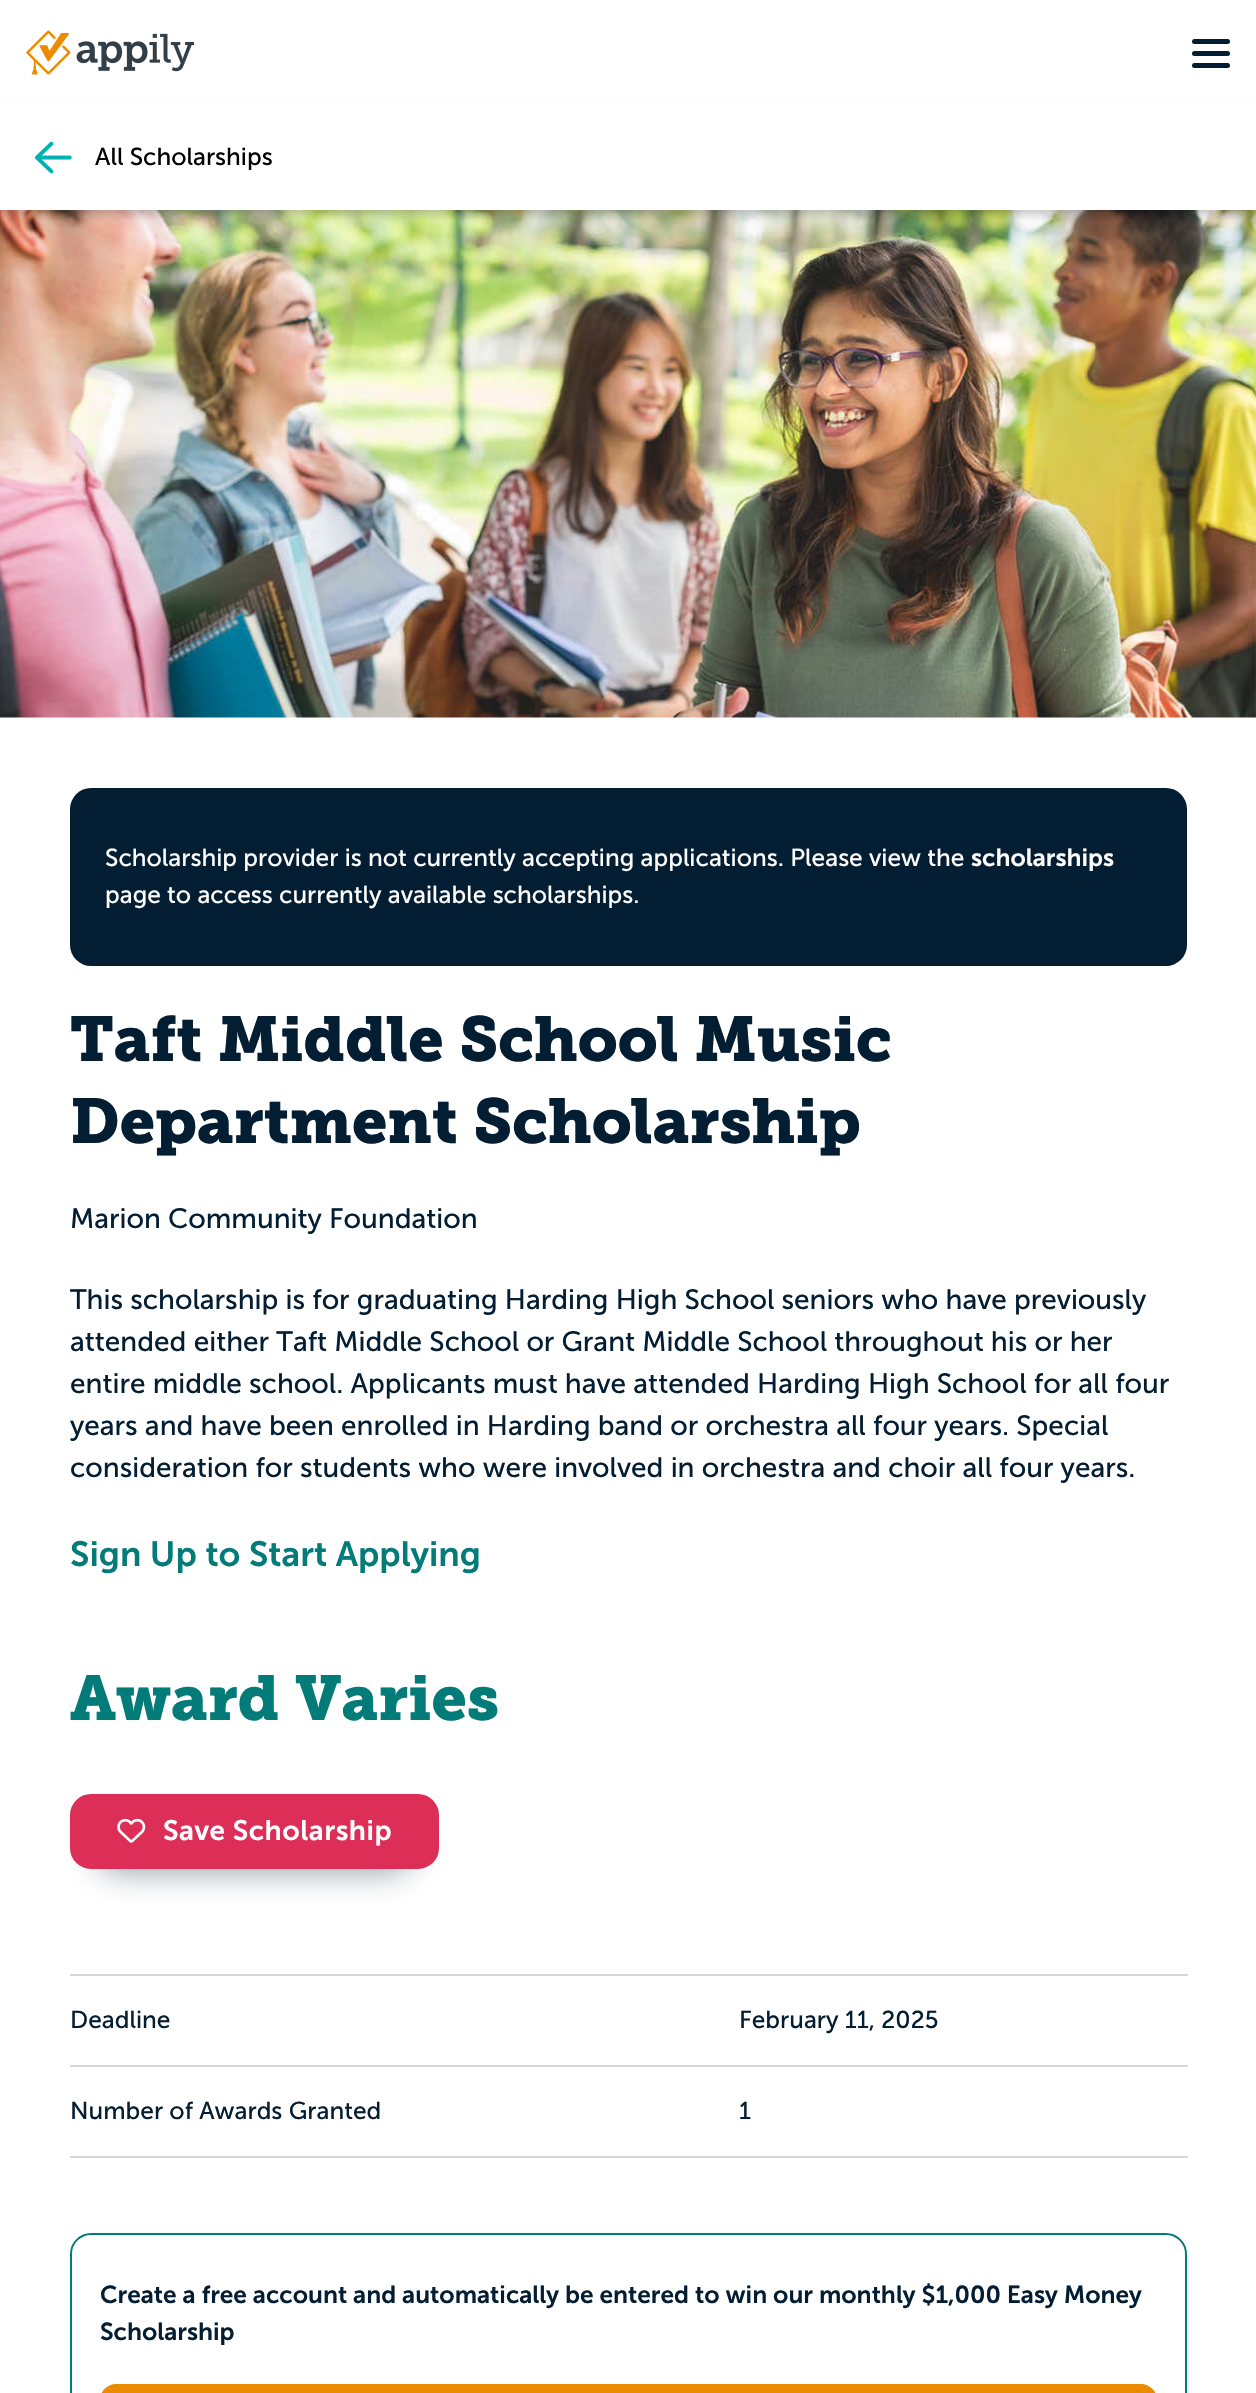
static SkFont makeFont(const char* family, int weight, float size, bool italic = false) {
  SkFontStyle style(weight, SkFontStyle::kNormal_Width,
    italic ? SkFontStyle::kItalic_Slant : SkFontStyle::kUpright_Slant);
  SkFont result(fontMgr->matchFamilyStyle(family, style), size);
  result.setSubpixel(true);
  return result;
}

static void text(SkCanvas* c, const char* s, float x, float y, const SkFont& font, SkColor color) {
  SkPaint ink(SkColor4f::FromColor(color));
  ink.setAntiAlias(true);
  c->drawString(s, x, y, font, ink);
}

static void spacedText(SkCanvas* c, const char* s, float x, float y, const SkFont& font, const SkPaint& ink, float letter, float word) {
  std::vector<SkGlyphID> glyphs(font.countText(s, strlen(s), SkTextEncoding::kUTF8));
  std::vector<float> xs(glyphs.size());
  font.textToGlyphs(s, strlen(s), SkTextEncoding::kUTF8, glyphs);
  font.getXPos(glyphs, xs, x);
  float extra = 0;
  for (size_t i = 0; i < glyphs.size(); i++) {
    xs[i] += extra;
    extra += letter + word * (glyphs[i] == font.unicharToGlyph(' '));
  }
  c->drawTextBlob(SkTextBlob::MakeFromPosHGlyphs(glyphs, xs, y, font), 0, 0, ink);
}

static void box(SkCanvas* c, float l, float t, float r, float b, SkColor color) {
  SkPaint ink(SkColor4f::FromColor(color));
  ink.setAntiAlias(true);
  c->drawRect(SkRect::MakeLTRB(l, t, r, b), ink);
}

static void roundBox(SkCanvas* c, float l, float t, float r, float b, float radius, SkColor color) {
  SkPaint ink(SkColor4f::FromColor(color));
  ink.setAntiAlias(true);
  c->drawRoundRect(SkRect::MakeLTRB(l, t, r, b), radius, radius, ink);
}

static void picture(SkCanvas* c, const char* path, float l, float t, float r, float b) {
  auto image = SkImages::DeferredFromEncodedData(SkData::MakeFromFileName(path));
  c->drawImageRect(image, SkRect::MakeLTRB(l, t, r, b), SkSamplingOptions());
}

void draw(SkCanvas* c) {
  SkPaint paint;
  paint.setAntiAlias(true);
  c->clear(0xffffffff);
  picture(c, "img_01.png", 26, 30, 194, 75);
  roundBox(c, 1192, 51, 1230, 56, 2.5f, 0xff031d32);
  roundBox(c, 1192, 39, 1230, 44, 2.5f, 0xff031d32);
  roundBox(c, 1192, 63, 1230, 68, 2.5f, 0xff031d32);
  picture(c, "img_03.png", 0, 210, 1256, 718);
  paint.setColor(0x40000000);
  paint.setMaskFilter(SkMaskFilter::MakeBlur(kNormal_SkBlurStyle, 5));
  c->drawRect(SkRect::MakeLTRB(0, 109, 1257, 214), paint);
  paint.setMaskFilter(nullptr);
  box(c, 0, 100, 1256, 210, 0xffffffff);
  picture(c, "img_02.png", 35, 141, 72, 174);
  SkFont face1 = makeFont("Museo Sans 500", 400, 24.5f);
  text(c, "All Scholarships", 95, 165, face1, 0xff000000);
  roundBox(c, 70, 788, 1187, 966, 21, 0xff031d32);
  text(c, "Scholarship provider is not currently accepting applications. Please view the", 105, 866, face1, 0xffffffff);
  SkFont face2 = makeFont("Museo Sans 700", 600, 24.5f);
  text(c, "scholarships", 971, 866, face2, 0xffffffff);
  text(c, "page to access currently available scholarships.", 105, 903, face1, 0xffffffff);
  SkFont face3 = makeFont("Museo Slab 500", 700, 63);
  text(c, "Taft Middle School Music", 70, 1061, face3, 0xff031d32);
  text(c, "Department Scholarship", 70, 1143, face3, 0xff031d32);
  SkFont face4 = makeFont("Museo Sans 500", 400, 28);
  text(c, "Marion Community Foundation", 70, 1228, face4, 0xff031d32);
  text(c, "This scholarship is for graduating Harding High School seniors who have previously", 70, 1309, face4, 0xff031d32);
  text(c, "attended either Taft Middle School or Grant Middle School throughout his or her", 70, 1351, face4, 0xff031d32);
  text(c, "entire middle school. Applicants must have attended Harding High School for all four", 70, 1393, face4, 0xff031d32);
  text(c, "years and have been enrolled in Harding band or orchestra all four years. Special", 70, 1435, face4, 0xff031d32);
  text(c, "consideration for students who were involved in orchestra and choir all four years.", 70, 1477, face4, 0xff031d32);
  SkFont face5 = makeFont("Museo Sans 700", 600, 35);
  text(c, "Sign Up to Start Applying", 70, 1566, face5, 0xff037b79);
  text(c, "Award Varies", 70, 1720, face3, 0xff037b79);
  paint.setColor(0x80031d32);
  paint.setMaskFilter(SkMaskFilter::MakeBlur(kNormal_SkBlurStyle, 17.5f));
  c->drawRoundRect(SkRect::MakeLTRB(98, 1827, 411, 1869), 21, 21, paint);
  paint.setMaskFilter(nullptr);
  paint.setColor(0xffdd2e58);
  c->drawRoundRect(SkRect::MakeLTRB(71, 1795, 438, 1868), 20, 20, paint);
  paint.setStyle(SkPaint::kStroke_Style);
  paint.setStrokeWidth(2);
  c->drawRoundRect(SkRect::MakeLTRB(71, 1795, 438, 1868), 20, 20, paint);
  picture(c, "img_04.png", 117, 1818, 146, 1843);
  SkFont face6 = makeFont("Museo Sans 700", 600, 28);
  paint.setStyle(SkPaint::kFill_Style);
  paint.setColor(0xffffffff);
  spacedText(c, "Save Scholarship", 163, 1840, face6, paint, 0.5f, 0);
  box(c, 70, 1974, 1188, 1976, 0xffd8d7d8);
  text(c, "Deadline", 70, 2028, face1, 0xff031d32);
  text(c, "February 11, 2025", 739, 2028, face1, 0xff031d32);
  box(c, 70, 2065, 1188, 2067, 0xffd8d7d8);
  box(c, 70, 2156, 1188, 2158, 0xffd8d7d8);
  text(c, "Number of Awards Granted", 70, 2119, face1, 0xff031d32);
  text(c, "1", 739, 2119, face1, 0xff031d32);
  paint.setStyle(SkPaint::kStroke_Style);
  paint.setColor(0xff037b79);
  c->drawRoundRect(SkRect::MakeLTRB(71, 2234, 1186, 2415), 20, 20, paint);
  text(c, "Create a free account and automatically be entered to win our monthly $1,000 Easy Money", 100, 2303, face2, 0xff031d32);
  text(c, "Scholarship", 100, 2340, face2, 0xff031d32);
  paint.setStyle(SkPaint::kFill_Style);
  paint.setColor(0xffed8b00);
  c->drawRoundRect(SkRect::MakeLTRB(101, 2385, 1156, 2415), 20, 20, paint);
  paint.setStyle(SkPaint::kStroke_Style);
  c->drawRoundRect(SkRect::MakeLTRB(101, 2385, 1156, 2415), 20, 20, paint);
}
